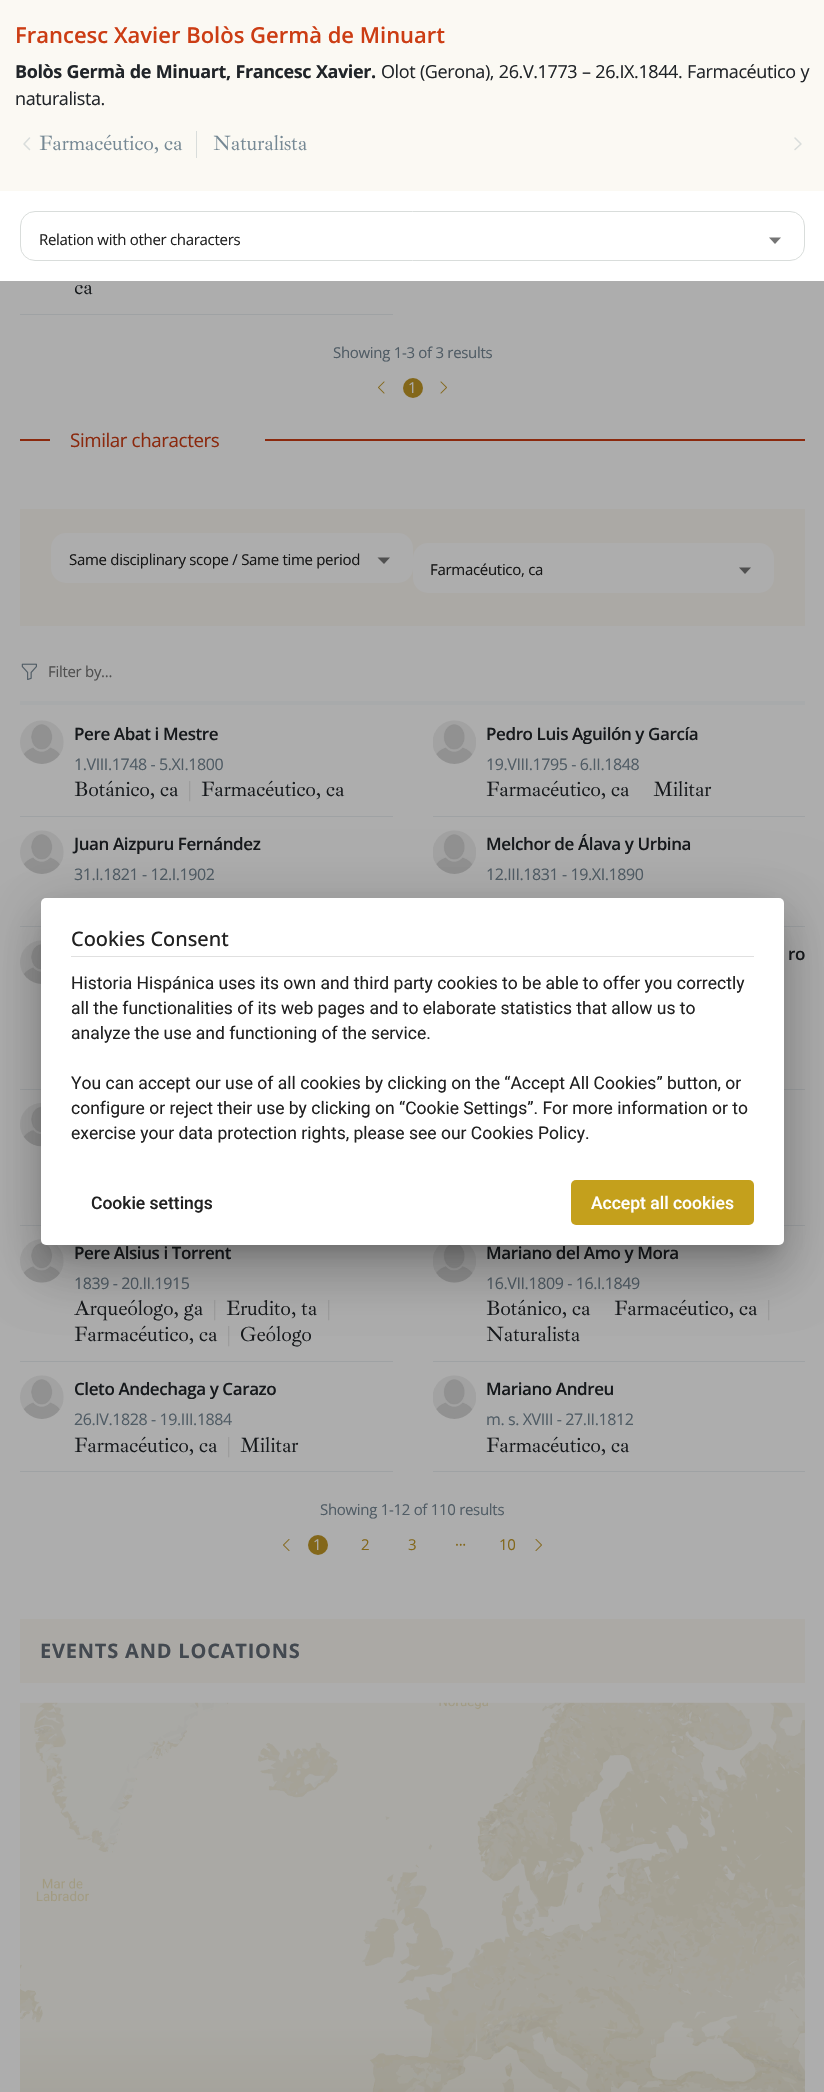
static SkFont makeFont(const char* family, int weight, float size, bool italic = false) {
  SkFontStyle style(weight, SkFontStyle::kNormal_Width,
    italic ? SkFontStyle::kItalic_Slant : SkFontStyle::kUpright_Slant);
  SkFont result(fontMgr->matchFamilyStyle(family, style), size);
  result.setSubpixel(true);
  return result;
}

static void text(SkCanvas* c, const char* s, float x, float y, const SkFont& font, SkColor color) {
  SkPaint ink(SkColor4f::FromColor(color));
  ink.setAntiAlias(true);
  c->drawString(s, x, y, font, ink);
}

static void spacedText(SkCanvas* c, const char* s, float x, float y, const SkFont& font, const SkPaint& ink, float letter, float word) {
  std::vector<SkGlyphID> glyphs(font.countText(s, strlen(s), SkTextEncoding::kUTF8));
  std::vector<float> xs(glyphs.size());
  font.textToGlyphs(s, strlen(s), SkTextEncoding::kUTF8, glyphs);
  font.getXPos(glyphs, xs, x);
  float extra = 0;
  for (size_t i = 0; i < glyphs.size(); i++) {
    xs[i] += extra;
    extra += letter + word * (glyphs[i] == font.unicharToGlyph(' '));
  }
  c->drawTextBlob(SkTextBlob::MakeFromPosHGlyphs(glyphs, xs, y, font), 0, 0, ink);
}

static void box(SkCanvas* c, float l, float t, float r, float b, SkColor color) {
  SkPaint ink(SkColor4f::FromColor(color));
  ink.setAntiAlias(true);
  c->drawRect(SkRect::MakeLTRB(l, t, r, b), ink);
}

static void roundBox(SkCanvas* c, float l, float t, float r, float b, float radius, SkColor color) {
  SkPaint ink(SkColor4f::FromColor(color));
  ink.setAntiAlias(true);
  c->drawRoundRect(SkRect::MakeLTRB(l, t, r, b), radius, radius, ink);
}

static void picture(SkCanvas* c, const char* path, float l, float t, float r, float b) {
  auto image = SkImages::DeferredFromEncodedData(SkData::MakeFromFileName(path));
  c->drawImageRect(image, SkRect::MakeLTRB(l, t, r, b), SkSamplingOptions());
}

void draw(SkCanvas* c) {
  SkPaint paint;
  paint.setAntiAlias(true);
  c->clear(0xffadadad);
  box(c, 0, 0, 824, 191, 0xfffbf9f3);
  SkFont face1 = makeFont("Open Sans", 600, 22);
  text(c, "Francesc Xavier Bolòs Germà de Minuart", 15, 43, face1, 0xffcc3d14);
  SkFont face2 = makeFont("Open Sans", 700, 18);
  paint.setColor(0xff212529);
  spacedText(c, "Bolòs Germà de Minuart, Francesc Xavier.", 15, 78, face2, paint, -0.4f, 0.5f);
  SkFont face3 = makeFont("Open Sans", 400, 18);
  spacedText(c, "Olot (Gerona), 26.V.1773 – 26.IX.1844. Farmacéutico y", 381, 78, face3, paint, -0.4f, 0.5f);
  spacedText(c, "naturalista.", 15, 105, face3, paint, -0.4f, 0);
  paint.setStyle(SkPaint::kStroke_Style);
  paint.setStrokeWidth(1.5f);
  paint.setStrokeCap(SkPaint::kRound_Cap);
  paint.setStrokeJoin(SkPaint::kRound_Join);
  paint.setColor(0xffd9dddb);
  c->drawPath(SkPathBuilder().moveTo(29.5f, 138).lineTo(24, 144).lineTo(29.5f, 149.5f).detach(), paint);
  box(c, 196, 131, 197, 158, 0xffd9dddb);
  SkFont face4 = makeFont("Ibarra Real Nova", 400, 21);
  paint.setStyle(SkPaint::kFill_Style);
  paint.setColor(0xff758894);
  spacedText(c, "Farmacéutico, ca", 39, 150, face4, paint, -0.4f, 0);
  spacedText(c, "Naturalista", 213, 150, face4, paint, -0.4f, 0);
  paint.setStyle(SkPaint::kStroke_Style);
  paint.setColor(0xffd9dddb);
  c->drawPath(SkPathBuilder().moveTo(795, 138).lineTo(801, 144).lineTo(795, 149.5f).detach(), paint);
  box(c, 0, 191, 824, 281, 0xffffffff);
  paint.setStrokeWidth(1);
  paint.setStrokeCap(SkPaint::kButt_Cap);
  paint.setStrokeJoin(SkPaint::kMiter_Join);
  c->drawRoundRect(SkRect::MakeLTRB(20.5f, 211.5f, 804.5f, 260.5f), 14.5f, 14.5f, paint);
  SkFont face5 = makeFont("Open Sans", 400, 15);
  paint.setStyle(SkPaint::kFill_Style);
  paint.setColor(0xff212121);
  spacedText(c, "Relation with other characters", 39, 245, face5, paint, -0.3f, 0);
  paint.setColor(0xff757575);
  c->drawPath(SkPathBuilder().moveTo(769, 237.5f).lineTo(781, 237.5f).lineTo(775, 244).close().detach(), paint);
  box(c, 20, 314, 393, 315, 0xff9fa2a4);
  paint.setColor(0xff16191c);
  spacedText(c, "ca", 74, 294, face4, paint, -0.4f, 0);
  paint.setColor(0xff505c65);
  spacedText(c, "Showing 1-3 of 3 results", 333, 358, face5, paint, -0.3f, 0);
  picture(c, "img_01.png", 378, 381, 385, 394);
  paint.setColor(0xff83671a);
  c->drawCircle(413, 388, 10, paint);
  paint.setColor(0xffadadad);
  spacedText(c, "1", 408, 393, face5, paint, -0.3f, 0);
  picture(c, "img_02.png", 440, 381, 447, 394);
  box(c, 20, 439, 50, 441, 0xff8b290e);
  SkFont face6 = makeFont("Open Sans", 400, 18.75f);
  paint.setColor(0xff8b290e);
  spacedText(c, "Similar characters", 70, 447, face6, paint, -0.4f, 0);
  box(c, 265, 439, 805, 441, 0xff8b290e);
  box(c, 20, 509, 805, 626, 0xffaba9a5);
  roundBox(c, 51, 533, 413, 583, 15, 0xffadadad);
  paint.setColor(0xff161616);
  spacedText(c, "Same disciplinary scope / Same time period", 69, 565, face5, paint, -0.3f, 0);
  paint.setColor(0xff505050);
  c->drawPath(SkPathBuilder().moveTo(377.5f, 557.5f).lineTo(390, 557.5f).lineTo(384, 564).close().detach(), paint);
  roundBox(c, 413, 543, 774, 593, 15, 0xffadadad);
  paint.setColor(0xff161616);
  spacedText(c, "Farmacéutico, ca", 430, 575, face5, paint, -0.3f, 0);
  paint.setColor(0xff505050);
  c->drawPath(SkPathBuilder().moveTo(739, 567.5f).lineTo(751, 567.5f).lineTo(745, 574).close().detach(), paint);
  box(c, 20, 701, 805, 705, 0xffa8aaab);
  picture(c, "img_03.png", 21, 663, 37, 680);
  spacedText(c, "Filter by...", 48, 677, face5, paint, -0.3f, 0);
  box(c, 20, 816, 393, 817, 0xff9fa2a4);
  picture(c, "img_04.png", 20, 720, 64, 764);
  SkFont face7 = makeFont("Open Sans", 600, 17);
  paint.setColor(0xff16191c);
  spacedText(c, "Pere Abat i Mestre", 74, 740, face7, paint, -0.4f, 0);
  SkFont face8 = makeFont("Open Sans", 400, 16);
  paint.setColor(0xff505c65);
  spacedText(c, "1.VIII.1748 - 5.XI.1800", 74, 770, face8, paint, -0.4f, 0);
  paint.setColor(0xff16191c);
  spacedText(c, "Botánico, ca", 74, 796, face4, paint, -0.4f, 0);
  paint.setColor(0xff989898);
  spacedText(c, "|", 187, 796, face4, paint, -0.4f, 0);
  paint.setColor(0xff16191c);
  spacedText(c, "Farmacéutico, ca", 201, 796, face4, paint, -0.4f, 0);
  box(c, 433, 816, 805, 817, 0xff9fa2a4);
  picture(c, "img_05.png", 433, 720, 476, 764);
  spacedText(c, "Pedro Luis Aguilón y García", 486, 740, face7, paint, -0.4f, 0);
  paint.setColor(0xff505c65);
  spacedText(c, "19.VIII.1795 - 6.II.1848", 486, 770, face8, paint, -0.4f, 0);
  paint.setColor(0xff16191c);
  spacedText(c, "Farmacéutico, ca", 486, 796, face4, paint, -0.4f, 0);
  spacedText(c, "Militar", 653, 796, face4, paint, -0.4f, 0);
  box(c, 20, 926, 41, 927, 0xff9fa2a4);
  picture(c, "img_04.png", 20, 830, 64, 874);
  spacedText(c, "Juan Aizpuru Fernández", 74, 850, face7, paint, -0.4f, 0);
  paint.setColor(0xff505c65);
  spacedText(c, "31.I.1821 - 12.I.1902", 74, 880, face8, paint, -0.4f, 0);
  box(c, 784, 926, 805, 927, 0xff9fa2a4);
  picture(c, "img_05.png", 433, 830, 476, 874);
  paint.setColor(0xff16191c);
  spacedText(c, "Melchor de Álava y Urbina", 486, 850, face7, paint, -0.4f, 0);
  paint.setColor(0xff505c65);
  spacedText(c, "12.III.1831 - 19.XI.1890", 486, 880, face8, paint, -0.4f, 0);
  box(c, 20, 1089, 41, 1090, 0xff9fa2a4);
  picture(c, "img_06.png", 20, 940, 41, 984);
  box(c, 784, 1089, 805, 1090, 0xff9fa2a4);
  paint.setColor(0xff16191c);
  spacedText(c, "ro", 788, 960, face7, paint, -0.4f, 0);
  box(c, 20, 1225, 41, 1226, 0xff9fa2a4);
  picture(c, "img_07.png", 20, 1103, 41, 1147);
  box(c, 784, 1225, 805, 1226, 0xff9fa2a4);
  box(c, 20, 1361, 393, 1362, 0xff9fa2a4);
  picture(c, "img_08.png", 20, 1239, 64, 1283);
  spacedText(c, "Pere Alsius i Torrent", 74, 1259, face7, paint, -0.4f, 0);
  paint.setColor(0xff505c65);
  spacedText(c, "1839 - 20.II.1915", 74, 1289, face8, paint, -0.4f, 0);
  paint.setColor(0xff16191c);
  spacedText(c, "Arqueólogo, ga", 74, 1315, face4, paint, -0.4f, 0);
  paint.setColor(0xff989898);
  spacedText(c, "|", 212, 1315, face4, paint, -0.4f, 0);
  paint.setColor(0xff16191c);
  spacedText(c, "Erudito, ta", 226, 1315, face4, paint, -0.4f, 0);
  paint.setColor(0xff989898);
  spacedText(c, "|", 326, 1315, face4, paint, -0.4f, 0);
  paint.setColor(0xff16191c);
  spacedText(c, "Farmacéutico, ca", 74, 1341, face4, paint, -0.4f, 0);
  paint.setColor(0xff989898);
  spacedText(c, "|", 226, 1341, face4, paint, -0.4f, 0);
  paint.setColor(0xff16191c);
  spacedText(c, "Geólogo", 240, 1341, face4, paint, -0.4f, 0);
  box(c, 433, 1361, 805, 1362, 0xff9fa2a4);
  picture(c, "img_09.png", 433, 1245, 476, 1283);
  spacedText(c, "Mariano del Amo y Mora", 486, 1259, face7, paint, -0.4f, 0);
  paint.setColor(0xff505c65);
  spacedText(c, "16.VII.1809 - 16.I.1849", 486, 1289, face8, paint, -0.4f, 0);
  paint.setColor(0xff16191c);
  spacedText(c, "Botánico, ca", 486, 1315, face4, paint, -0.4f, 0);
  spacedText(c, "Farmacéutico, ca", 614, 1315, face4, paint, -0.4f, 0);
  paint.setColor(0xff989898);
  spacedText(c, "|", 766, 1315, face4, paint, -0.4f, 0);
  paint.setColor(0xff16191c);
  spacedText(c, "Naturalista", 486, 1341, face4, paint, -0.4f, 0);
  box(c, 20, 1471, 393, 1472, 0xff9fa2a4);
  picture(c, "img_04.png", 20, 1375, 64, 1419);
  spacedText(c, "Cleto Andechaga y Carazo", 74, 1395, face7, paint, -0.4f, 0);
  paint.setColor(0xff505c65);
  spacedText(c, "26.IV.1828 - 19.III.1884", 74, 1425, face8, paint, -0.4f, 0);
  paint.setColor(0xff16191c);
  spacedText(c, "Farmacéutico, ca", 74, 1452, face4, paint, -0.4f, 0);
  paint.setColor(0xff989898);
  spacedText(c, "|", 226, 1452, face4, paint, -0.4f, 0);
  paint.setColor(0xff16191c);
  spacedText(c, "Militar", 240, 1452, face4, paint, -0.4f, 0);
  box(c, 433, 1471, 805, 1472, 0xff9fa2a4);
  picture(c, "img_05.png", 433, 1375, 476, 1419);
  spacedText(c, "Mariano Andreu", 486, 1395, face7, paint, -0.4f, 0);
  paint.setColor(0xff505c65);
  spacedText(c, "m. s. XVIII - 27.II.1812", 486, 1425, face8, paint, -0.4f, 0);
  paint.setColor(0xff16191c);
  spacedText(c, "Farmacéutico, ca", 486, 1452, face4, paint, -0.4f, 0);
  paint.setColor(0xff505c65);
  spacedText(c, "Showing 1-12 of 110 results", 320, 1515, face5, paint, -0.3f, 0);
  picture(c, "img_10.png", 283, 1539, 290, 1551);
  paint.setColor(0xff83671a);
  c->drawCircle(318, 1545, 10, paint);
  paint.setColor(0xffadadad);
  spacedText(c, "1", 313, 1550, face5, paint, -0.3f, 0);
  paint.setColor(0xff83671a);
  spacedText(c, "2", 361, 1550, face5, paint, -0.3f, 0);
  spacedText(c, "3", 408, 1550, face5, paint, -0.3f, 0);
  spacedText(c, "···", 455, 1550, face5, paint, -0.3f, 0);
  spacedText(c, "10", 499, 1550, face5, paint, -0.3f, 0);
  picture(c, "img_11.png", 535, 1539, 542, 1551);
  box(c, 20, 1619, 805, 1683, 0xffaba9a5);
  SkFont face9 = makeFont("Open Sans", 700, 20);
  paint.setColor(0xff434950);
  spacedText(c, "EVENTS AND LOCATIONS", 40, 1658, face9, paint, 0.8f, 0);
  {
    const SkColor colors[] = {0xffababa9, 0xff959285, 0xff5b5028};
    const float stops[] = {0.3f, 0.5f, 0.8f};
    const SkPoint ends[] = {{412, 1703}, {413, 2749}};
    paint.setShader(SkGradientShader::MakeLinear(ends, colors, stops, 3, SkTileMode::kClamp));
    paint.setAlpha(255);
  }
  c->drawRect(SkRect::MakeLTRB(20, 1703, 805, 2092), paint);
  picture(c, "img_12.png", 20, 1702, 805, 2092);
  paint.setShader(nullptr);
  paint.setColor(0x1f000000);
  paint.setMaskFilter(SkMaskFilter::MakeBlur(kNormal_SkBlurStyle, 29));
  c->drawRoundRect(SkRect::MakeLTRB(31, 899, 794, 1266), 15, 15, paint);
  paint.setMaskFilter(nullptr);
  paint.setColor(0x24000000);
  paint.setMaskFilter(SkMaskFilter::MakeBlur(kNormal_SkBlurStyle, 24));
  c->drawRoundRect(SkRect::MakeLTRB(38, 924, 788, 1279), 9, 9, paint);
  paint.setMaskFilter(nullptr);
  paint.setColor(0x33000000);
  paint.setMaskFilter(SkMaskFilter::MakeBlur(kNormal_SkBlurStyle, 9.5f));
  c->drawRect(SkRect::MakeLTRB(50, 920, 775, 1250), paint);
  paint.setMaskFilter(nullptr);
  roundBox(c, 41, 898, 784, 1245, 5, 0xffffffff);
  box(c, 71, 956, 754, 957, 0xffe0e0e0);
  SkFont face10 = makeFont("Open Sans", 500, 20);
  text(c, "Cookies Consent", 71, 946, face10, 0xff212121);
  SkFont face11 = makeFont("Roboto", 400, 17.5f);
  text(c, "Historia Hispánica uses its own and third party cookies to be able to offer you correctly", 71, 989, face11, 0xff212121);
  text(c, "all the functionalities of its web pages and to elaborate statistics that allow us to", 71, 1014, face11, 0xff212121);
  text(c, "analyze the use and functioning of the service.", 71, 1039, face11, 0xff212121);
  text(c, "You can accept our use of all cookies by clicking on the “Accept All Cookies” button, or", 71, 1089, face11, 0xff212121);
  text(c, "configure or reject their use by clicking on “Cookie Settings”. For more information or to", 71, 1114, face11, 0xff212121);
  text(c, "exercise your data protection rights, please see our Cookies Policy.", 71, 1139, face11, 0xff212121);
  SkFont face12 = makeFont("Roboto", 500, 17.5f);
  text(c, "Cookie settings", 91, 1209, face12, 0xff212121);
  roundBox(c, 571, 1180, 754, 1225, 5, 0xffc4a01c);
  text(c, "Accept all cookies", 591, 1209, face12, 0xffffffff);
}
